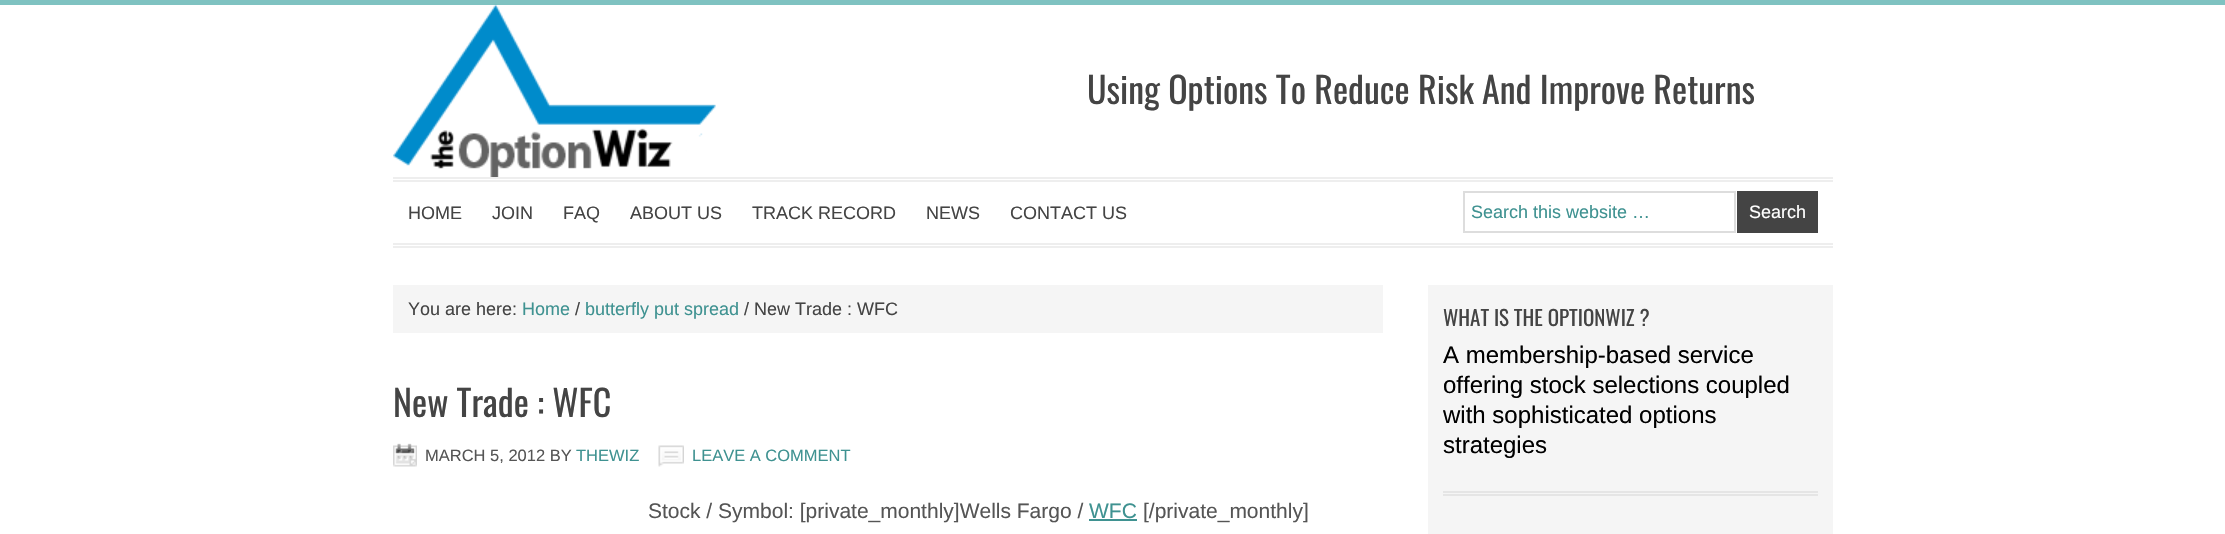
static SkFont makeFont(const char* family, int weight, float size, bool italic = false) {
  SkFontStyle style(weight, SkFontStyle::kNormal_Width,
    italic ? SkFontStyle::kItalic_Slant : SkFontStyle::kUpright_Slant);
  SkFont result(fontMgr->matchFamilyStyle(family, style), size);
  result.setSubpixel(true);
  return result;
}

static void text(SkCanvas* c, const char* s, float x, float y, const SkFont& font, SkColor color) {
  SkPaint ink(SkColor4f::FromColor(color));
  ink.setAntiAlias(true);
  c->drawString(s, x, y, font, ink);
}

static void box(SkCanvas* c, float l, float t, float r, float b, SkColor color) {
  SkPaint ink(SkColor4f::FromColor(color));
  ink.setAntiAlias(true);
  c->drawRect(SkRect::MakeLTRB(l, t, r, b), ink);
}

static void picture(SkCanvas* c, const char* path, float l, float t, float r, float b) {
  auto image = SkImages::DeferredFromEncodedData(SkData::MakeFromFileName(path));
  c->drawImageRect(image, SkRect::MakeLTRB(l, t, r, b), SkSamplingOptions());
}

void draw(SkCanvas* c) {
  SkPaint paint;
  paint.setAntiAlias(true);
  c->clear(0xffffffff);
  box(c, 0, 0, 2225, 5, 0xff7fc2c1);
  picture(c, "img_01.png", 393, 4, 716, 177);
  box(c, 393, 177, 1833, 179, 0xffeeeeee);
  box(c, 393, 180, 1833, 182, 0xffeeeeee);
  SkFont face1 = makeFont("Oswald", 400, 36);
  text(c, "Using Options To Reduce Risk And Improve Returns", 1087, 104, face1, 0xff444444);
  box(c, 393, 243, 1833, 245, 0xffeeeeee);
  box(c, 393, 246, 1833, 248, 0xffeeeeee);
  SkFont face2 = makeFont("Liberation Sans", 400, 18);
  text(c, "HOME", 408, 219, face2, 0xff444444);
  text(c, "JOIN", 492, 219, face2, 0xff444444);
  text(c, "FAQ", 563, 219, face2, 0xff444444);
  text(c, "ABOUT US", 630, 219, face2, 0xff444444);
  text(c, "TRACK RECORD", 752, 219, face2, 0xff444444);
  text(c, "NEWS", 926, 219, face2, 0xff444444);
  text(c, "CONTACT US", 1010, 219, face2, 0xff444444);
  paint.setStyle(SkPaint::kStroke_Style);
  paint.setStrokeWidth(2);
  paint.setColor(0xffdddddd);
  c->drawRect(SkRect::MakeLTRB(1464, 192, 1735, 232), paint);
  text(c, "Search this website …", 1471, 218, face2, 0xff3f9291);
  box(c, 1737, 191, 1818, 233, 0xff444444);
  text(c, "Search", 1749, 218, face2, 0xffffffff);
  box(c, 393, 285, 1383, 333, 0xfff5f5f5);
  text(c, "You are here:", 408, 315, face2, 0xff444444);
  text(c, "Home", 522, 315, face2, 0xff3f9291);
  text(c, "/", 575, 315, face2, 0xff444444);
  text(c, "butterfly put spread", 585, 315, face2, 0xff3f9291);
  text(c, "/ New Trade : WFC", 744, 315, face2, 0xff444444);
  text(c, "New Trade : WFC", 393, 417, face1, 0xff444444);
  picture(c, "img_02.png", 393, 443, 417, 467);
  SkFont face3 = makeFont("Liberation Sans", 400, 16.5f);
  text(c, "MARCH 5, 2012 BY", 425, 461, face3, 0xff555555);
  text(c, "THEWIZ", 576, 461, face3, 0xff3f9291);
  picture(c, "img_03.png", 658, 445, 684, 467);
  text(c, "LEAVE A COMMENT", 692, 461, face3, 0xff3f9291);
  SkFont face4 = makeFont("Liberation Sans", 400, 21);
  text(c, "Stock / Symbol: [private_monthly]Wells Fargo /", 648, 518, face4, 0xff555555);
  text(c, "WFC", 1089, 518, face4, 0xff3f9291);
  box(c, 1089, 519, 1137, 521, 0xff3f9291);
  text(c, "[/private_monthly]", 1143, 518, face4, 0xff555555);
  box(c, 1428, 285, 1833, 534, 0xfff5f5f5);
  box(c, 1443, 491, 1818, 493, 0xffe5e5e5);
  box(c, 1443, 494, 1818, 496, 0xffe5e5e5);
  SkFont face5 = makeFont("Oswald", 400, 21);
  text(c, "WHAT IS THE OPTIONWIZ ?", 1443, 326, face5, 0xff444444);
  SkFont face6 = makeFont("Liberation Sans", 400, 24);
  text(c, "A membership-based service", 1443, 363, face6, 0xff000000);
  text(c, "offering stock selections coupled", 1443, 393, face6, 0xff000000);
  text(c, "with sophisticated options", 1443, 423, face6, 0xff000000);
  text(c, "strategies", 1443, 453, face6, 0xff000000);
}
